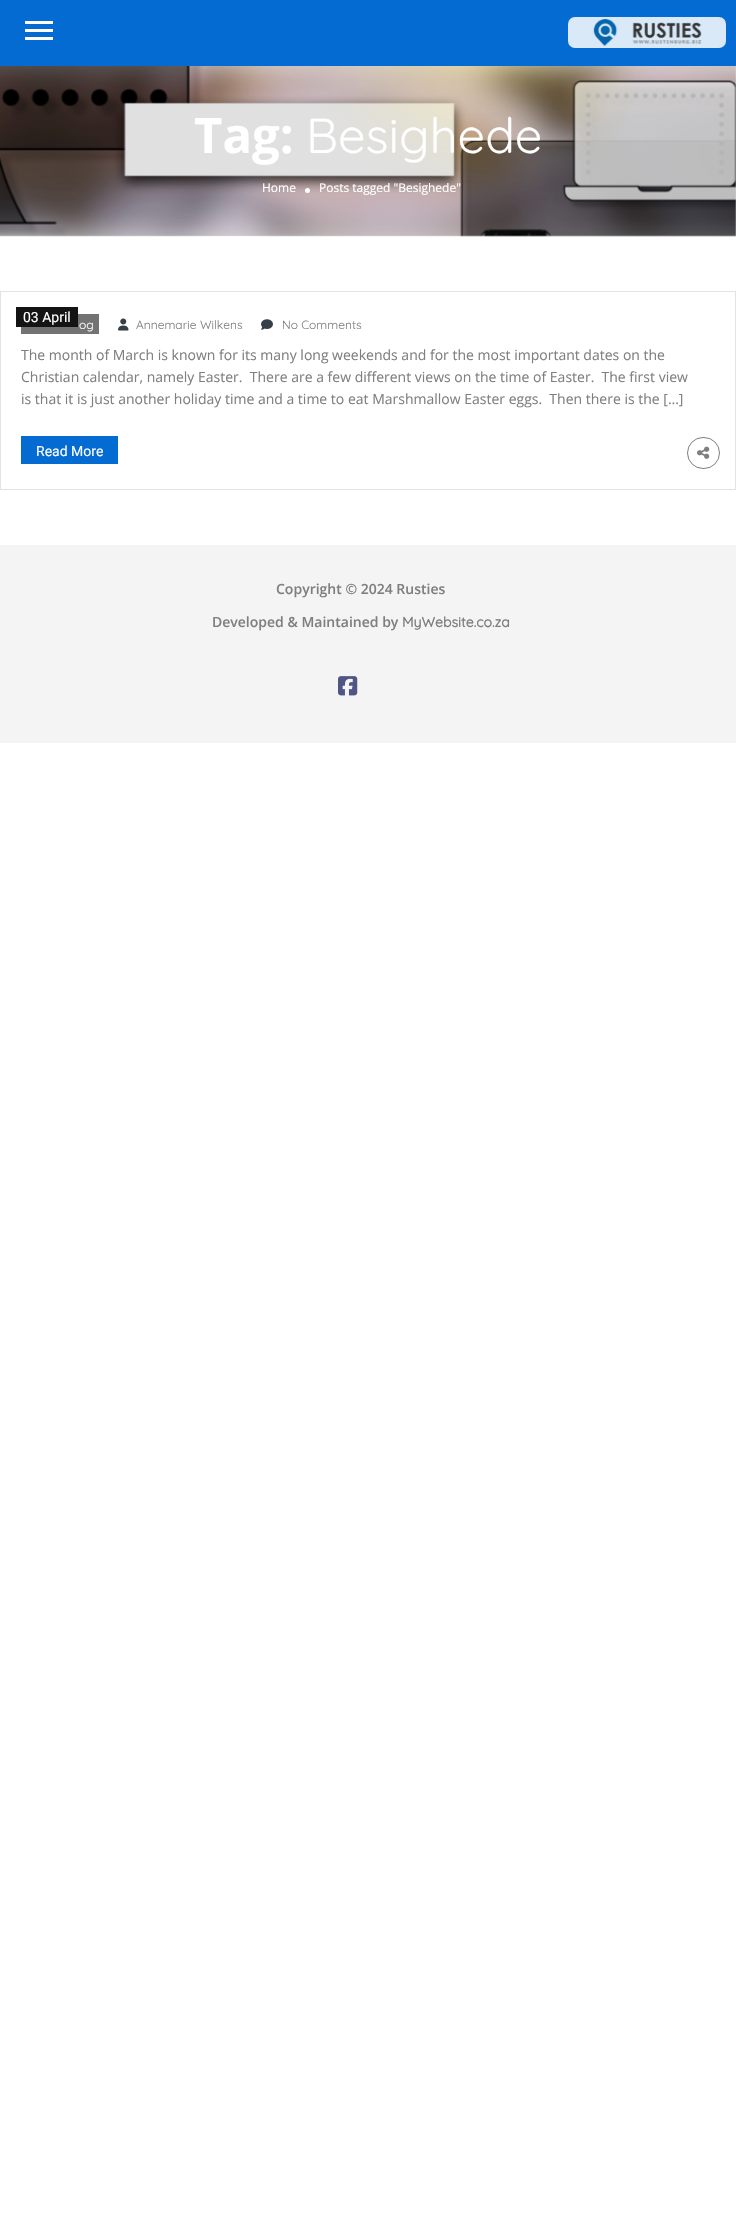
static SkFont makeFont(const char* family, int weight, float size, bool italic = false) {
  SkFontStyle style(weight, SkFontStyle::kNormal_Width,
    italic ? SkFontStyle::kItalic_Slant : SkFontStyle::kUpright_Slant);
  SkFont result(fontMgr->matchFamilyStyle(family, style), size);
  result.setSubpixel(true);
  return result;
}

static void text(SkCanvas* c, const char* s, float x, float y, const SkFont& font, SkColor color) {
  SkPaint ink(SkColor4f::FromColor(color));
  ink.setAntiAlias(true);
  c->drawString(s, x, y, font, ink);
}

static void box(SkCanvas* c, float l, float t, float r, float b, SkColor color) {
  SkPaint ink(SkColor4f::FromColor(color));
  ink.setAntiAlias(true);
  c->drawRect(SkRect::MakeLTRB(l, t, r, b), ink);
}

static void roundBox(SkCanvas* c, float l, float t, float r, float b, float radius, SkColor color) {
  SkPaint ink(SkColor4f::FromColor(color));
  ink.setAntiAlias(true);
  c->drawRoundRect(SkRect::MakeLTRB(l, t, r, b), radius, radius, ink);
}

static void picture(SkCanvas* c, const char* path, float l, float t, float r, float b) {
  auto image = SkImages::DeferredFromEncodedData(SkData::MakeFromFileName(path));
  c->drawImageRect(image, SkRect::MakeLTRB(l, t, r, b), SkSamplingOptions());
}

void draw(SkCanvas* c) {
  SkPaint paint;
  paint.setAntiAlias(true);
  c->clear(0xffffffff);
  box(c, 0, 0, 736, 66, 0xff046bd2);
  box(c, 25, 21, 53, 24, 0xffffffff);
  box(c, 25, 29, 53, 32, 0xffffffff);
  box(c, 25, 37, 53, 40, 0xffffffff);
  roundBox(c, 568, 17, 726, 48, 7, 0xffd9e9f8);
  picture(c, "img_01.png", 593, 19, 702, 46);
  picture(c, "img_02.png", 0, 66, 736, 237);
  {
    const SkColor colors[] = {0x40ffd700, 0x1f000000};
    const float stops[] = {0.05f, 0.35f};
    paint.setShader(SkGradientShader::MakeRadial({478, 15}, 527, colors, stops, 2, SkTileMode::kClamp));
    paint.setAlpha(255);
  }
  c->drawRect(SkRect::MakeLTRB(0, 66, 736, 236), paint);
  SkFont face1 = makeFont("Open Sans", 700, 49);
  text(c, "Tag:", 194, 153, face1, 0xffffffff);
  SkFont face2 = makeFont("Quicksand", 300, 49);
  text(c, "Besighede", 306, 153, face2, 0xffffffff);
  SkFont face3 = makeFont("Open Sans", 400, 12);
  text(c, "Home", 262, 192, face3, 0xffffffff);
  paint.setShader(nullptr);
  paint.setColor(0xffffffff);
  c->drawCircle(307.5f, 190.5f, 2.5f, paint);
  text(c, "Posts tagged \"Besighede\"", 319, 192, face3, 0xffffffff);
  paint.setStyle(SkPaint::kStroke_Style);
  paint.setStrokeWidth(1);
  paint.setColor(0xffe3e3e3);
  c->drawRect(SkRect::MakeLTRB(0.5f, 291.5f, 735.5f, 489.5f), paint);
  box(c, 21, 314, 99, 334, 0xff737373);
  box(c, 16, 307, 78, 327, 0xff141414);
  SkFont face4 = makeFont("Roboto", 400, 14);
  text(c, "03 April", 23, 322, face4, 0xffffffff);
  SkFont face5 = makeFont("Quicksand", 300, 12);
  text(c, "og", 79, 329, face5, 0xffffffff);
  picture(c, "img_03.png", 118, 318, 129, 331);
  text(c, "Annemarie Wilkens", 136, 329, face5, 0xff7f7f7f);
  picture(c, "img_04.png", 261, 319, 273, 330);
  text(c, "No Comments", 282, 329, face5, 0xff7f7f7f);
  SkFont face6 = makeFont("Open Sans", 400, 14);
  text(c, "The month of March is known for its many long weekends and for the most important dates on the", 21, 360, face6, 0xff7f7f7f);
  text(c, "Christian calendar, namely Easter.  There are a few different views on the time of Easter.  The first view", 21, 382, face6, 0xff7f7f7f);
  text(c, "is that it is just another holiday time and a time to eat Marshmallow Easter eggs.  Then there is the […]", 21, 404, face6, 0xff7f7f7f);
  box(c, 21, 436, 118, 464, 0xff046bd2);
  text(c, "Read More", 36, 456, face4, 0xffffffff);
  paint.setColor(0xff7f7f7f);
  c->drawRoundRect(SkRect::MakeLTRB(687.5f, 437.5f, 719.5f, 468.5f), 15.5f, 15.5f, paint);
  picture(c, "img_05.png", 697, 446, 710, 459);
  box(c, 0, 545, 736, 743, 0xfff4f4f5);
  SkFont face7 = makeFont("Open Sans", 600, 14);
  text(c, "Copyright © 2024 Rusties", 276, 594, face7, 0xff7f7f7f);
  text(c, "Developed & Maintained by", 212, 627, face7, 0xff7f7f7f);
  SkFont face8 = makeFont("Quicksand", 700, 14);
  text(c, "MyWebsite.co.za", 402, 627, face8, 0xff7f7f7f);
  picture(c, "img_06.png", 338, 676, 358, 696);
}
